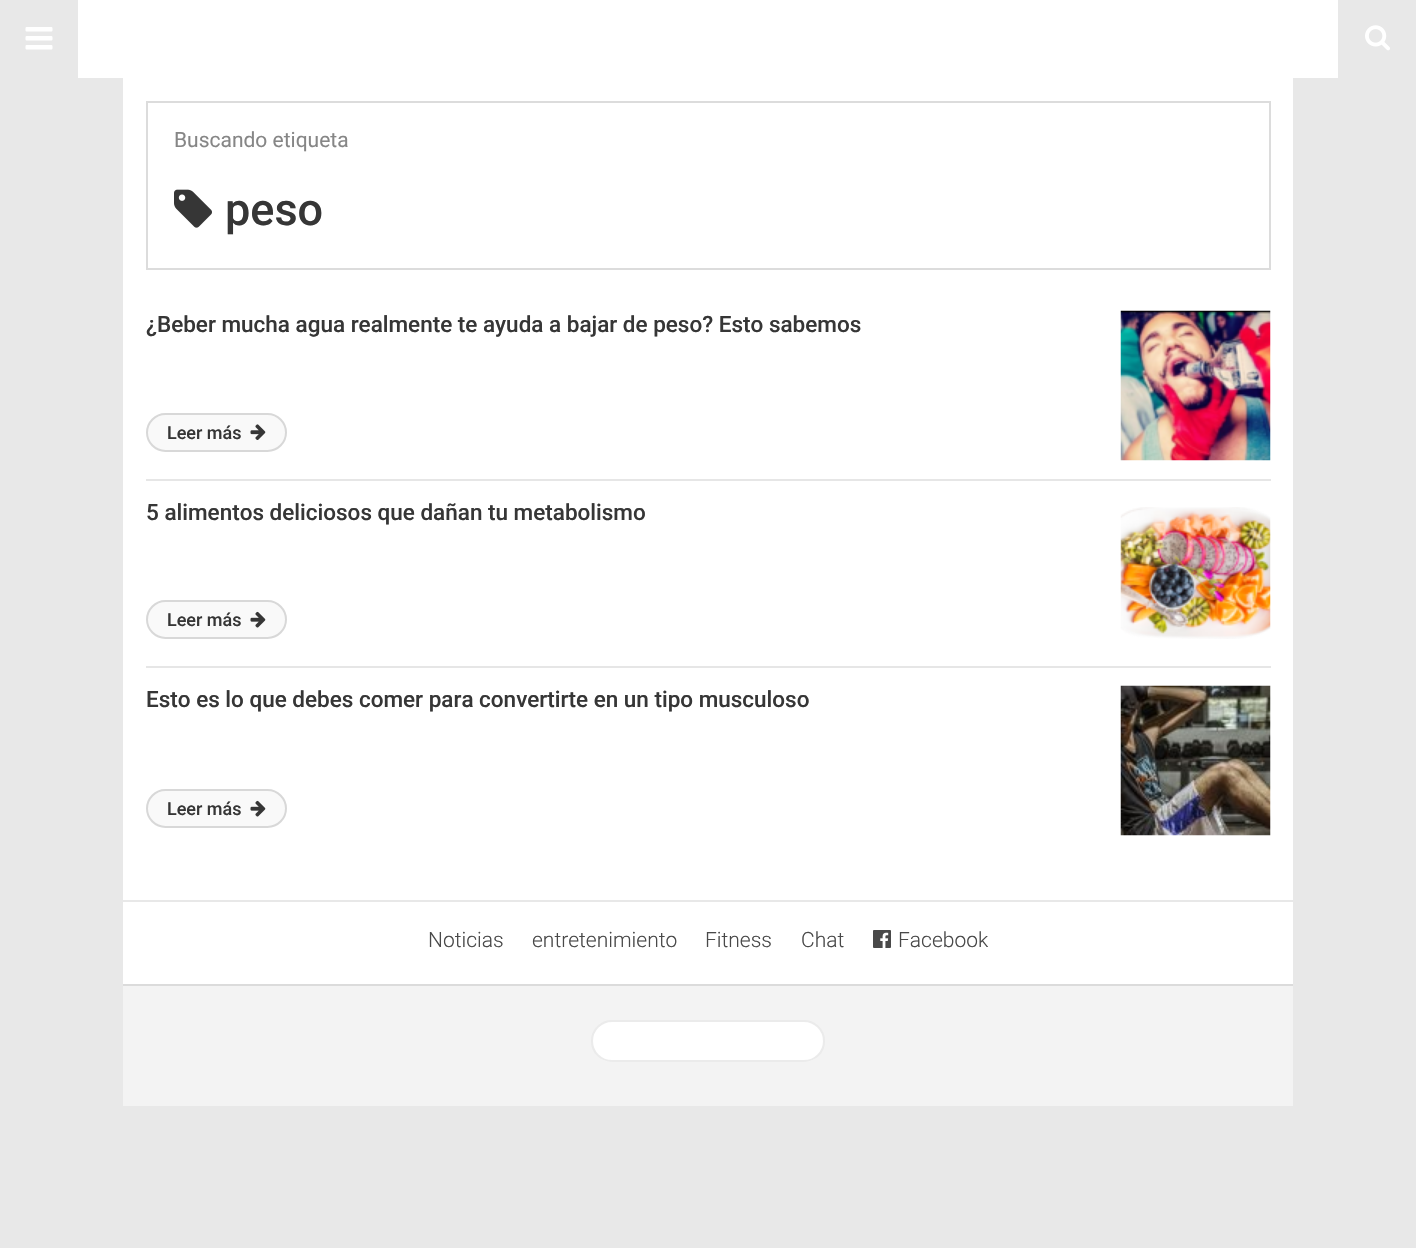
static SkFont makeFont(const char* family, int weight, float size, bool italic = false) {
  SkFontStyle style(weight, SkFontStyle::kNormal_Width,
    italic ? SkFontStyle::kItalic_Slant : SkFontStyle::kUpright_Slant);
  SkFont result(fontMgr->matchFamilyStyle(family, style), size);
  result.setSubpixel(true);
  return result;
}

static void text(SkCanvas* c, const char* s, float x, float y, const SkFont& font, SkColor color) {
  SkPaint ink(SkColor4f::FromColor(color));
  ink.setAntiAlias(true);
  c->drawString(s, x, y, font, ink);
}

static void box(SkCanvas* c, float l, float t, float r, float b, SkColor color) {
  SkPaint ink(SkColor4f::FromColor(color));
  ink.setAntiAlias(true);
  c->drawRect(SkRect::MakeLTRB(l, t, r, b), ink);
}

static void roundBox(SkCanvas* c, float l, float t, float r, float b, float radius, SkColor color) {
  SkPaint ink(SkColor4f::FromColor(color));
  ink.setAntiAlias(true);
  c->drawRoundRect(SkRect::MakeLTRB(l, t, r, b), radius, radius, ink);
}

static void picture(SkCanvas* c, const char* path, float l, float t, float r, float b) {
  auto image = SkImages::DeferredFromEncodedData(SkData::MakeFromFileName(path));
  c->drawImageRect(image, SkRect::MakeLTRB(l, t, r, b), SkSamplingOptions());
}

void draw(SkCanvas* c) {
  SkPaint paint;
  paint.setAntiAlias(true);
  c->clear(0xffe8e8e8);
  box(c, 123, 78, 1293, 900, 0xffffffff);
  box(c, 78, 0, 1338, 78, 0xffffffff);
  picture(c, "img_01.png", 25, 27, 53, 50);
  picture(c, "img_02.png", 1365, 25, 1390, 51);
  paint.setStyle(SkPaint::kStroke_Style);
  paint.setStrokeWidth(2);
  paint.setColor(0xffdcdcdc);
  c->drawRect(SkRect::MakeLTRB(147, 102, 1270, 269), paint);
  SkFont face1 = makeFont("Roboto", 400, 21);
  text(c, "Buscando etiqueta", 174, 147, face1, 0xff868686);
  picture(c, "img_03.png", 174, 189, 212, 228);
  SkFont face2 = makeFont("Roboto", 500, 45);
  text(c, "peso", 225, 225, face2, 0xff363636);
  box(c, 146, 479, 1271, 481, 0xffe6e6e6);
  SkFont face3 = makeFont("Roboto", 500, 22.5f);
  text(c, "¿Beber mucha agua realmente te ayuda a bajar de peso? Esto sabemos", 146, 332, face3, 0xff363636);
  picture(c, "img_04.png", 1120, 310, 1271, 461);
  paint.setStyle(SkPaint::kFill_Style);
  paint.setColor(0xfff9f9f9);
  c->drawRoundRect(SkRect::MakeLTRB(147, 414, 286, 451), 18.5f, 18.5f, paint);
  paint.setStyle(SkPaint::kStroke_Style);
  paint.setColor(0xffd8d8d8);
  c->drawRoundRect(SkRect::MakeLTRB(147, 414, 286, 451), 18.5f, 18.5f, paint);
  SkFont face4 = makeFont("Roboto", 500, 18);
  text(c, "Leer más", 167, 439, face4, 0xff363636);
  picture(c, "img_05.png", 250, 424, 266, 440);
  box(c, 146, 666, 1271, 668, 0xffe6e6e6);
  text(c, "5 alimentos deliciosos que dañan tu metabolismo", 146, 520, face3, 0xff363636);
  picture(c, "img_06.png", 1120, 507, 1271, 639);
  paint.setStyle(SkPaint::kFill_Style);
  paint.setColor(0xfff9f9f9);
  c->drawRoundRect(SkRect::MakeLTRB(147, 601, 286, 638), 18.5f, 18.5f, paint);
  paint.setStyle(SkPaint::kStroke_Style);
  paint.setColor(0xffd8d8d8);
  c->drawRoundRect(SkRect::MakeLTRB(147, 601, 286, 638), 18.5f, 18.5f, paint);
  text(c, "Leer más", 167, 626, face4, 0xff363636);
  picture(c, "img_07.png", 250, 611, 266, 628);
  text(c, "Esto es lo que debes comer para convertirte en un tipo musculoso", 146, 707, face3, 0xff363636);
  picture(c, "img_08.png", 1120, 685, 1271, 836);
  paint.setStyle(SkPaint::kFill_Style);
  paint.setColor(0xfff9f9f9);
  c->drawRoundRect(SkRect::MakeLTRB(147, 790, 286, 827), 18.5f, 18.5f, paint);
  paint.setStyle(SkPaint::kStroke_Style);
  paint.setColor(0xffd8d8d8);
  c->drawRoundRect(SkRect::MakeLTRB(147, 790, 286, 827), 18.5f, 18.5f, paint);
  text(c, "Leer más", 167, 815, face4, 0xff363636);
  picture(c, "img_07.png", 250, 800, 266, 817);
  box(c, 123, 986, 1293, 1106, 0xfff3f3f3);
  box(c, 123, 902, 1293, 984, 0xffffffff);
  SkFont face5 = makeFont("Roboto", 300, 21);
  text(c, "Noticias", 428, 947, face5, 0xff494949);
  text(c, "entretenimiento", 532, 947, face5, 0xff494949);
  text(c, "Fitness", 705, 947, face5, 0xff494949);
  text(c, "Chat", 801, 947, face5, 0xff494949);
  picture(c, "img_09.png", 873, 930, 891, 948);
  text(c, "Facebook", 898, 947, face5, 0xff494949);
  box(c, 123, 984, 1293, 986, 0xffdbdbdb);
  roundBox(c, 591, 1020, 825, 1062, 21, 0xffffffff);
  paint.setColor(0x14000000);
  c->drawRoundRect(SkRect::MakeLTRB(592, 1021, 824, 1061), 20, 20, paint);
}
